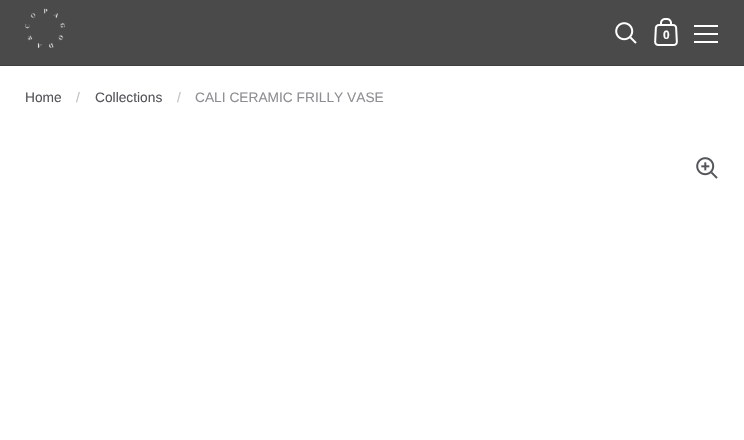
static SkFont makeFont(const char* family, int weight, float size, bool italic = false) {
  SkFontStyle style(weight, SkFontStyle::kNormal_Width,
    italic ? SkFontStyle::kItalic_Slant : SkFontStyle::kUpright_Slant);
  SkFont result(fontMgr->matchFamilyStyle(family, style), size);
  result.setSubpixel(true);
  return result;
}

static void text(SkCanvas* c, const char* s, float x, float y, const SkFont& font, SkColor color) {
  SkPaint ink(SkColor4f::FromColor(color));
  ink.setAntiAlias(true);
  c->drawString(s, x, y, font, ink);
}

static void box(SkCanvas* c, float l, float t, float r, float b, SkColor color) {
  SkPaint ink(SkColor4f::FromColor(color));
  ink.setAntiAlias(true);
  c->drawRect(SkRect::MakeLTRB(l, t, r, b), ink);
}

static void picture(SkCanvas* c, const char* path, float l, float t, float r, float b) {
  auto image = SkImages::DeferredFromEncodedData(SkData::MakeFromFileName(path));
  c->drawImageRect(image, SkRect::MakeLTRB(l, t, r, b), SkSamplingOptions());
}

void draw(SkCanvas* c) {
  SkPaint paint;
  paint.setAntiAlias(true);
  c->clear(0xffffffff);
  box(c, 0, 65, 744, 66, 0xff414041);
  box(c, 0, 0, 744, 65, 0xff4b4a4b);
  picture(c, "img_01.png", 25, 8, 65, 48);
  picture(c, "img_02.png", 615, 22, 637, 44);
  picture(c, "img_03.png", 654, 18, 678, 46);
  SkFont face1 = makeFont("Liberation Sans", 700, 12);
  text(c, "0", 663, 39, face1, 0xffffffff);
  box(c, 694, 25, 718, 27, 0xffffffff);
  box(c, 694, 33, 718, 35, 0xffffffff);
  box(c, 694, 41, 718, 43, 0xffffffff);
  SkFont face2 = makeFont("Liberation Sans", 400, 13.75f);
  text(c, "Home", 25, 102, face2, 0xff54565a);
  text(c, "/", 76, 102, face2, 0xffc1c2c4);
  text(c, "Collections", 95, 102, face2, 0xff54565a);
  text(c, "/", 177, 102, face2, 0xffc1c2c4);
  text(c, "CALI CERAMIC FRILLY VASE", 195, 102, face2, 0xff8e8f92);
  picture(c, "img_04.png", 696, 157, 718, 179);
}
